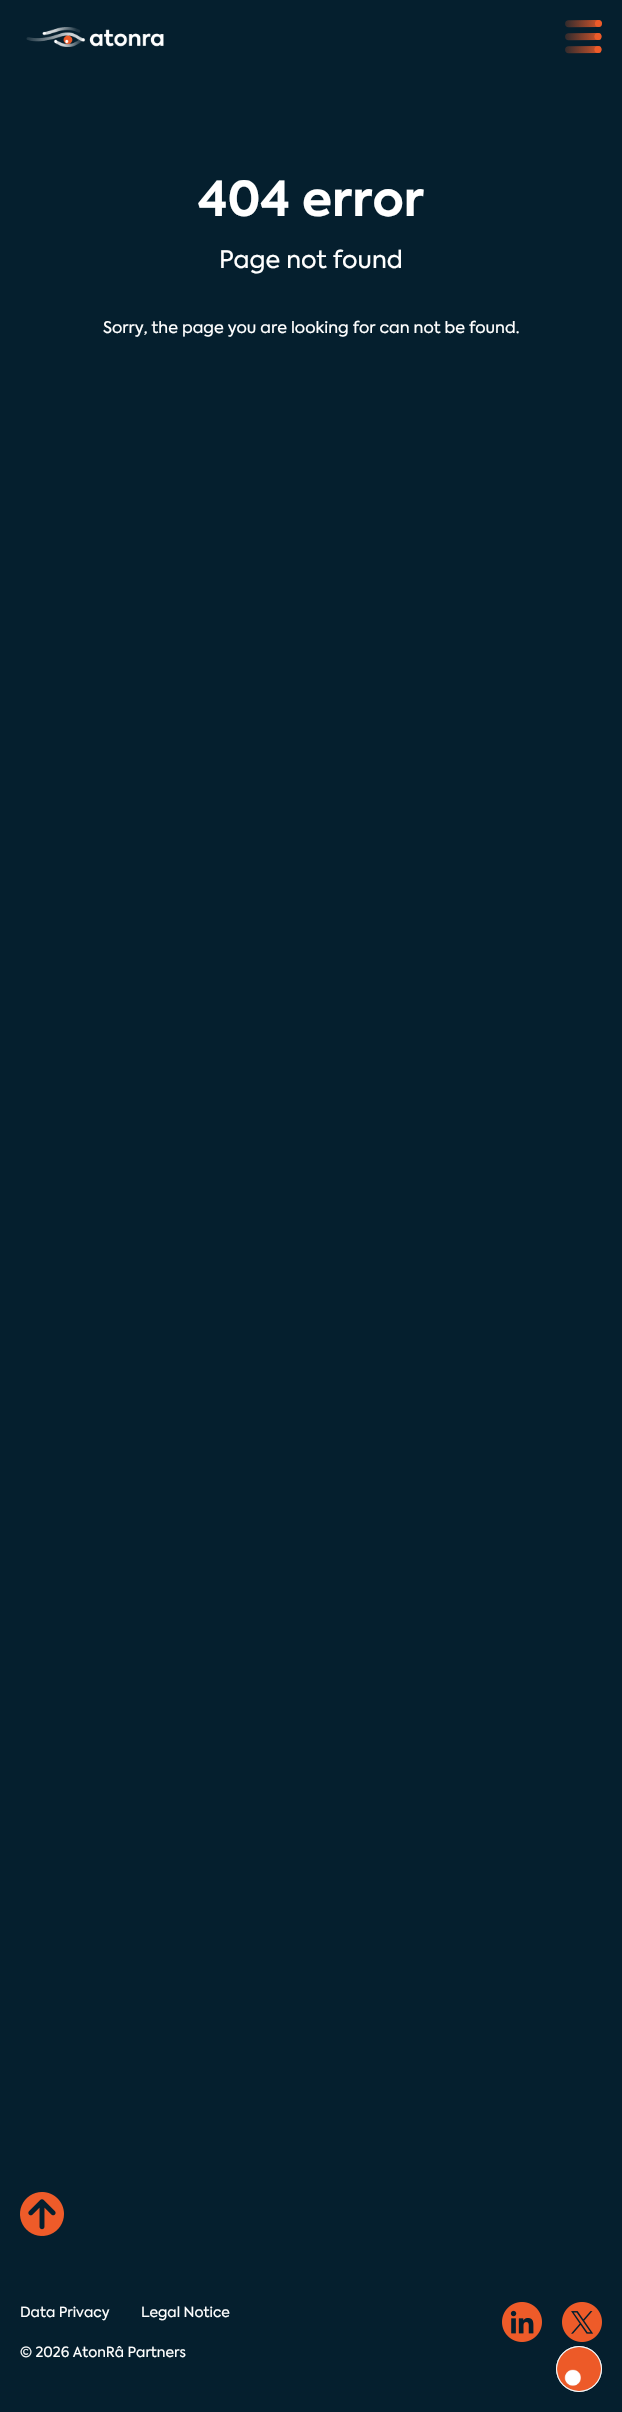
static SkFont makeFont(const char* family, int weight, float size, bool italic = false) {
  SkFontStyle style(weight, SkFontStyle::kNormal_Width,
    italic ? SkFontStyle::kItalic_Slant : SkFontStyle::kUpright_Slant);
  SkFont result(fontMgr->matchFamilyStyle(family, style), size);
  result.setSubpixel(true);
  return result;
}

static void text(SkCanvas* c, const char* s, float x, float y, const SkFont& font, SkColor color) {
  SkPaint ink(SkColor4f::FromColor(color));
  ink.setAntiAlias(true);
  c->drawString(s, x, y, font, ink);
}

static void picture(SkCanvas* c, const char* path, float l, float t, float r, float b) {
  auto image = SkImages::DeferredFromEncodedData(SkData::MakeFromFileName(path));
  c->drawImageRect(image, SkRect::MakeLTRB(l, t, r, b), SkSamplingOptions());
}

void draw(SkCanvas* c) {
  SkPaint paint;
  paint.setAntiAlias(true);
  c->clear(0xff051f2e);
  picture(c, "img_01.png", 26, 27, 164, 47);
  picture(c, "img_02.png", 565, 20, 602, 54);
  SkFont face1 = makeFont("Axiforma", 700, 48);
  text(c, "404 error", 198, 216, face1, 0xffffffff);
  SkFont face2 = makeFont("Axiforma", 400, 24);
  text(c, "Page not found", 219, 268, face2, 0xffffffff);
  SkFont face3 = makeFont("Axiforma", 400, 16);
  text(c, "Sorry, the page you are looking for can not be found.", 103, 333, face3, 0xffffffff);
  picture(c, "img_03.png", 20, 2192, 64, 2236);
  SkFont face4 = makeFont("Axiforma", 400, 14);
  text(c, "Data Privacy", 20, 2317, face4, 0xffffffff);
  text(c, "Legal Notice", 141, 2317, face4, 0xffffffff);
  picture(c, "img_04.png", 502, 2302, 542, 2342);
  picture(c, "img_05.png", 562, 2302, 602, 2342);
  text(c, "© 2026 AtonRâ Partners", 20, 2357, face4, 0xffffffff);
  paint.setColor(0xe6ffffff);
  c->drawCircle(579, 2369, 23, paint);
  paint.setStyle(SkPaint::kStroke_Style);
  paint.setStrokeWidth(1);
  paint.setColor(0xccffffff);
  c->drawCircle(579, 2369, 22.5f, paint);
  paint.setStyle(SkPaint::kFill_Style);
  paint.setColor(0x80d4d4d4);
  c->drawCircle(579, 2369, 22, paint);
  picture(c, "img_06.png", 557, 2347, 601, 2391);
}
